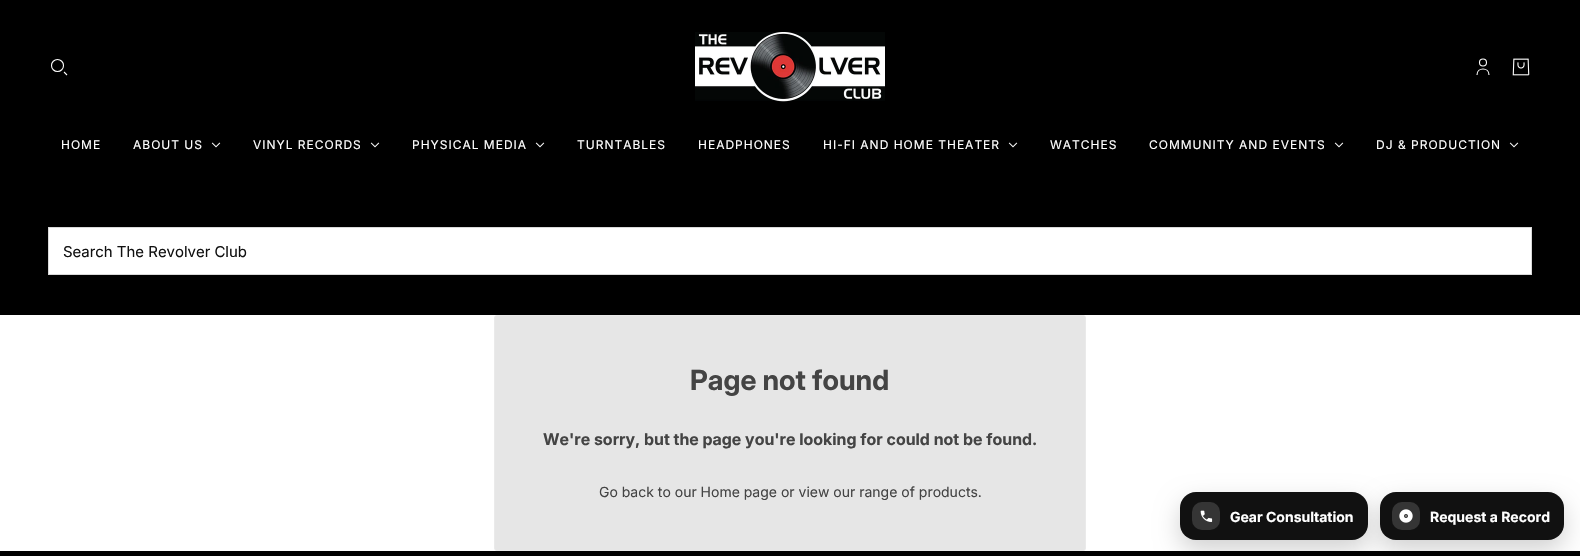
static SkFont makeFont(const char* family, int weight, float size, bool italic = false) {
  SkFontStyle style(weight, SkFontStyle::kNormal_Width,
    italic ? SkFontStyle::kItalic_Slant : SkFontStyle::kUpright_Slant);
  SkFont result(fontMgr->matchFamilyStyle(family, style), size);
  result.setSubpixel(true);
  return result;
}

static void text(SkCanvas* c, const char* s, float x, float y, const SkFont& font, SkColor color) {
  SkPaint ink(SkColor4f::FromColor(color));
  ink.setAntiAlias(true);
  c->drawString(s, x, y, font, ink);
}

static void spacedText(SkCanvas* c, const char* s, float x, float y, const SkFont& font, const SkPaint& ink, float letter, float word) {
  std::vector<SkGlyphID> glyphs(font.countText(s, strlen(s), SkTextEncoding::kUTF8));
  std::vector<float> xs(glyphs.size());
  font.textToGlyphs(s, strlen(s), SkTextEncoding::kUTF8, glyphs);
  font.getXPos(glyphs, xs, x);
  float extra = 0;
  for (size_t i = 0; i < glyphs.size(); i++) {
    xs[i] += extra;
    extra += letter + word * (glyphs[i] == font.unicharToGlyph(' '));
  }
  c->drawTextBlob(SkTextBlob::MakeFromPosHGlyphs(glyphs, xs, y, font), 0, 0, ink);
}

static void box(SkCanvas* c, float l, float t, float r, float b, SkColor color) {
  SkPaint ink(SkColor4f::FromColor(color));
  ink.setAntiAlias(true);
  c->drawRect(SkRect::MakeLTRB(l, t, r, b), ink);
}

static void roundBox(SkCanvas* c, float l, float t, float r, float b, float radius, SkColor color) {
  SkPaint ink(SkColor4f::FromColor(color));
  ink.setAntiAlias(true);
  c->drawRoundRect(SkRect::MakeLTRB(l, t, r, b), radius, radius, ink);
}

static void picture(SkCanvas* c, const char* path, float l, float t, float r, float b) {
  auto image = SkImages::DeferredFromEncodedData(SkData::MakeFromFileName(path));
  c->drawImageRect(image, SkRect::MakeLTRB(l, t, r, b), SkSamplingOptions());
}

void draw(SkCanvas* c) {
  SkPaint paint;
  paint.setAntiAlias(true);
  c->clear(0xffffffff);
  box(c, 0, 0, 1580, 315, 0xff000000);
  paint.setStyle(SkPaint::kStroke_Style);
  paint.setStrokeWidth(1.1f);
  paint.setColor(0xffffffff);
  c->drawCircle(57.5f, 65.5f, 6, paint);
  c->drawPath(SkPathBuilder().moveTo(64, 72).lineTo(67, 75).detach(), paint);
  picture(c, "img_01.png", 695, 32, 885, 102);
  c->drawCircle(1483, 62.5f, 3.5f, paint);
  c->drawPath(SkPathBuilder().moveTo(1477, 75).cubicTo(1477, 67, 1489, 67, 1489, 75).detach(), paint);
  picture(c, "img_02.png", 1512, 58, 1530, 76);
  SkFont face1 = makeFont("Inter", 400, 12);
  paint.setStyle(SkPaint::kFill_Style);
  spacedText(c, "HOME", 61, 149, face1, paint, 1, 0);
  spacedText(c, "ABOUT US", 133, 149, face1, paint, 1, 0);
  picture(c, "img_03.png", 211, 142, 221, 148);
  spacedText(c, "VINYL RECORDS", 253, 149, face1, paint, 1, 0);
  picture(c, "img_03.png", 370, 142, 380, 148);
  spacedText(c, "PHYSICAL MEDIA", 412, 149, face1, paint, 1, 0);
  picture(c, "img_03.png", 535, 142, 545, 148);
  spacedText(c, "TURNTABLES", 577, 149, face1, paint, 1, 0);
  spacedText(c, "HEADPHONES", 698, 149, face1, paint, 1, 0);
  spacedText(c, "HI-FI AND HOME THEATER", 823, 149, face1, paint, 1, 0);
  picture(c, "img_03.png", 1008, 142, 1018, 148);
  spacedText(c, "WATCHES", 1050, 149, face1, paint, 1, 0);
  spacedText(c, "COMMUNITY AND EVENTS", 1149, 149, face1, paint, 1, 0);
  picture(c, "img_03.png", 1334, 142, 1344, 148);
  spacedText(c, "DJ & PRODUCTION", 1376, 149, face1, paint, 1, 0);
  picture(c, "img_03.png", 1509, 142, 1519, 148);
  c->drawRect(SkRect::MakeLTRB(48.5f, 227.5f, 1531.5f, 274.5f), paint);
  paint.setStyle(SkPaint::kStroke_Style);
  paint.setStrokeWidth(1);
  paint.setColor(0xffd9d9d9);
  c->drawRect(SkRect::MakeLTRB(48.5f, 227.5f, 1531.5f, 274.5f), paint);
  SkFont face2 = makeFont("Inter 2", 400, 15);
  text(c, "Search The Revolver Club", 63, 257, face2, 0xff111111);
  paint.setStyle(SkPaint::kFill_Style);
  paint.setColor(0xffe6e6e6);
  c->drawRoundRect(SkRect::MakeLTRB(494.5f, 315.5f, 1085.5f, 550.5f), 2.5f, 2.5f, paint);
  paint.setStyle(SkPaint::kStroke_Style);
  paint.setColor(0xffeaeaea);
  c->drawRoundRect(SkRect::MakeLTRB(494.5f, 315.5f, 1085.5f, 550.5f), 2.5f, 2.5f, paint);
  SkFont face3 = makeFont("Inter", 700, 28);
  text(c, "Page not found", 690, 390, face3, 0xff444444);
  SkFont face4 = makeFont("Inter 2", 700, 16);
  text(c, "We're sorry, but the page you're looking for could not be found.", 543, 445, face4, 0xff444444);
  SkFont face5 = makeFont("Inter", 400, 14);
  text(c, "Go back to our Home page or view our range of products.", 599, 497, face5, 0xff444444);
  box(c, 0, 551, 1580, 556, 0xff000000);
  paint.setStyle(SkPaint::kFill_Style);
  paint.setColor(0x2e000000);
  paint.setMaskFilter(SkMaskFilter::MakeBlur(kNormal_SkBlurStyle, 12));
  c->drawRoundRect(SkRect::MakeLTRB(1180, 502, 1368, 550), 16, 16, paint);
  paint.setMaskFilter(nullptr);
  roundBox(c, 1180, 492, 1368, 540, 16, 0xff111111);
  roundBox(c, 1192, 502, 1220, 530, 10, 0xff353535);
  picture(c, "img_04.png", 1200, 510, 1213, 522);
  SkFont face6 = makeFont("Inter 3", 700, 14);
  text(c, "Gear Consultation", 1230, 522, face6, 0xffffffff);
  paint.setMaskFilter(SkMaskFilter::MakeBlur(kNormal_SkBlurStyle, 12));
  c->drawRoundRect(SkRect::MakeLTRB(1380, 502, 1564, 550), 16, 16, paint);
  paint.setMaskFilter(nullptr);
  roundBox(c, 1380, 492, 1564, 540, 16, 0xff111111);
  roundBox(c, 1392, 502, 1420, 530, 10, 0xff353535);
  picture(c, "img_05.png", 1399, 509, 1413, 523);
  text(c, "Request a Record", 1430, 522, face6, 0xffffffff);
}
